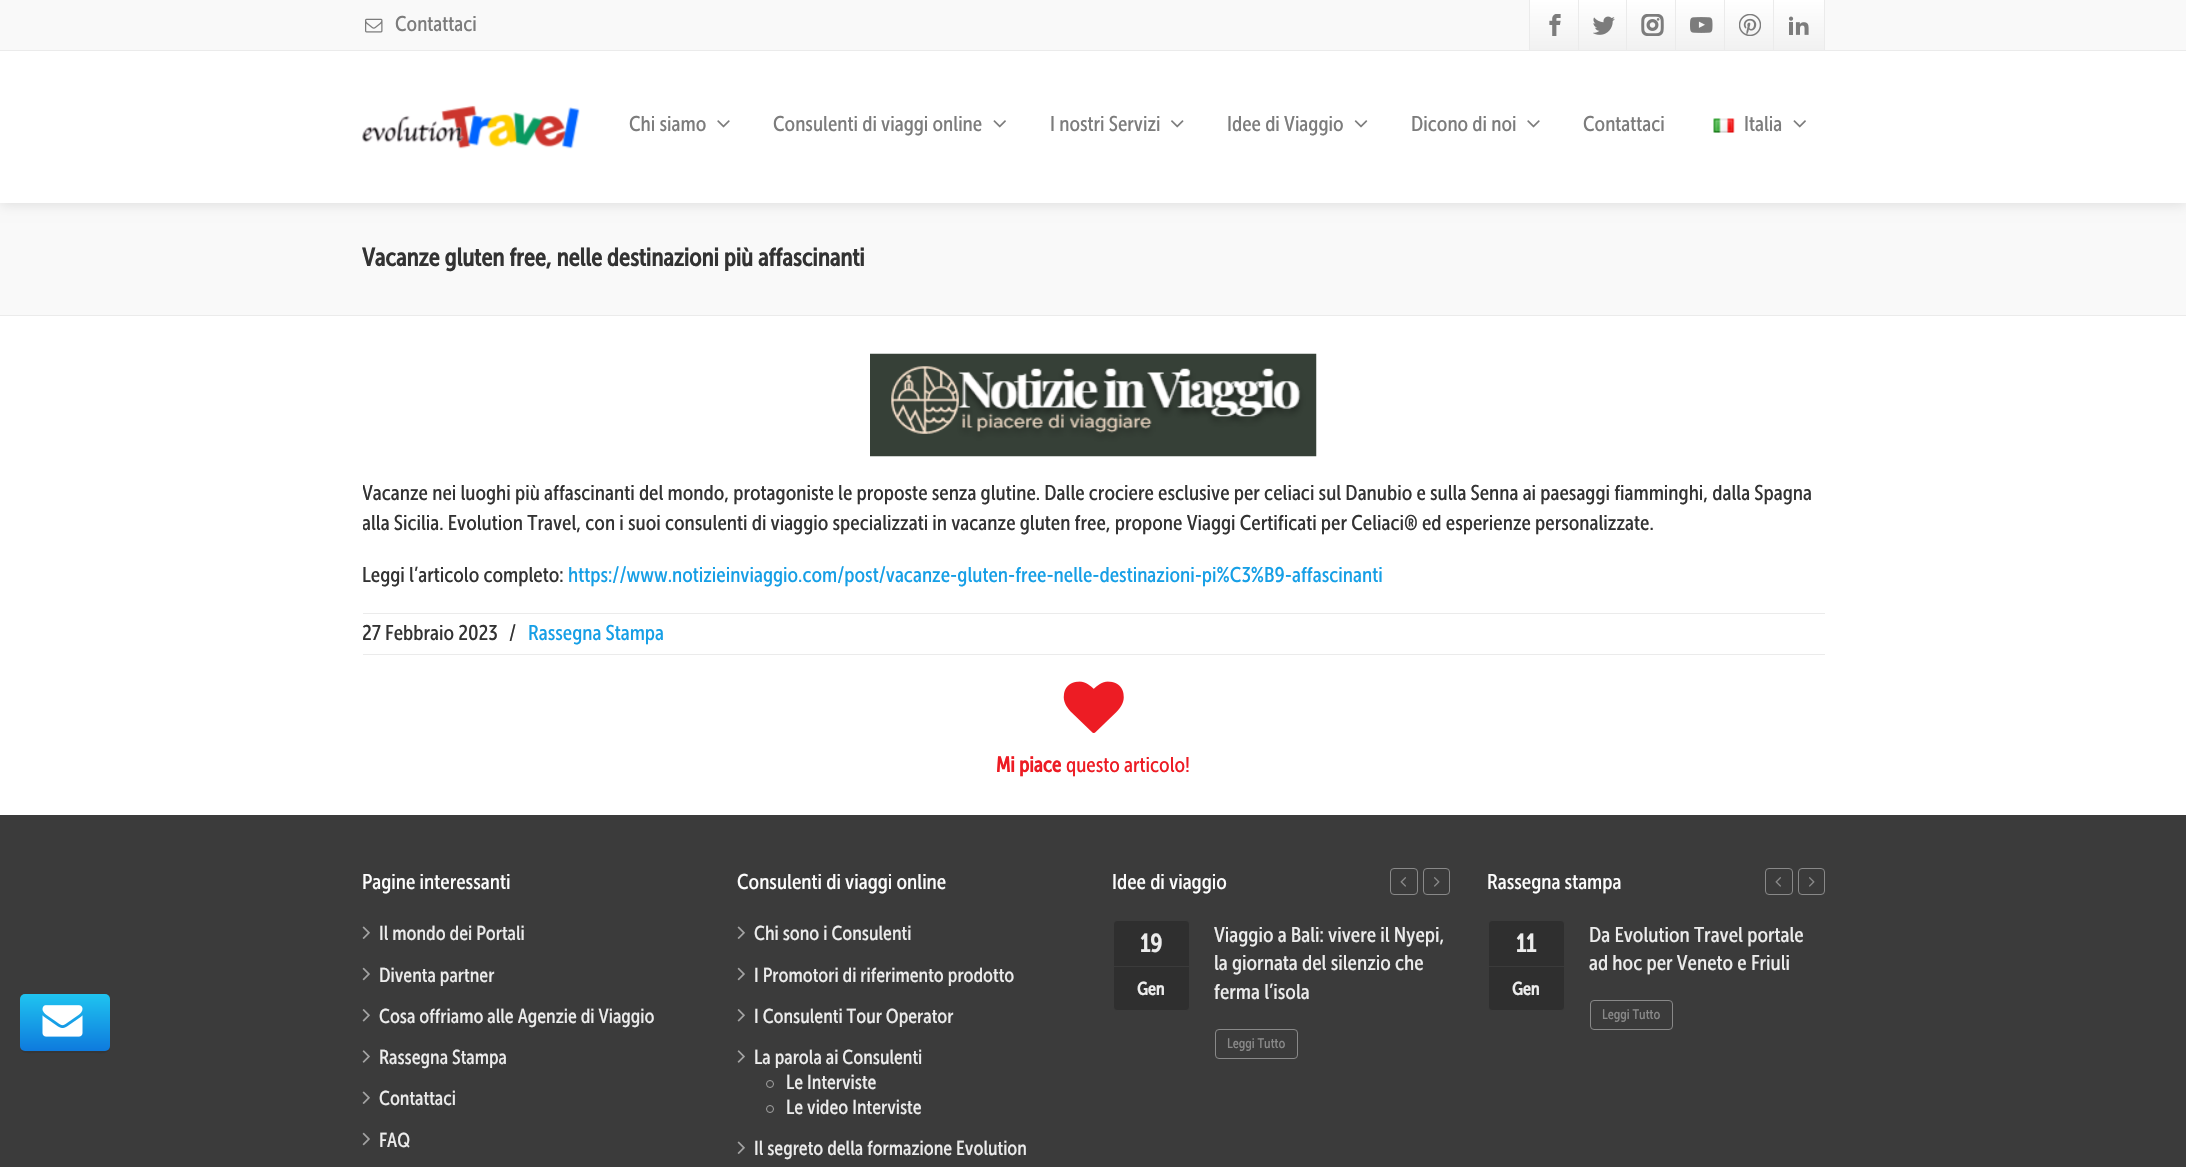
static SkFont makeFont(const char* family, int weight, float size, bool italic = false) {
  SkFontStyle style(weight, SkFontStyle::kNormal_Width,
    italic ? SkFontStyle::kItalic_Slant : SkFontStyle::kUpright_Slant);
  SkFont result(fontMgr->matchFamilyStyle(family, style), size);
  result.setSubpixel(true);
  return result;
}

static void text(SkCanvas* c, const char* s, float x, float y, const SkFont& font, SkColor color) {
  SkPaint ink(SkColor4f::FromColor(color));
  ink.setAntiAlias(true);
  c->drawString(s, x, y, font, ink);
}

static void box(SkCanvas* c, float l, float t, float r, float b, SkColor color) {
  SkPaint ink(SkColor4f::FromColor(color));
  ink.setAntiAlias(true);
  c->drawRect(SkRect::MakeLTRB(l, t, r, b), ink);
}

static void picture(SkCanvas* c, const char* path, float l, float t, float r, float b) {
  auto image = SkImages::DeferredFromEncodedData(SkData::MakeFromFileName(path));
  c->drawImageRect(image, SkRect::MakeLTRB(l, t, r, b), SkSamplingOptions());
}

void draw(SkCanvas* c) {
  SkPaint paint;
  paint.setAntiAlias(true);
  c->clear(0xffffffff);
  box(c, 0, 815, 2186, 1167, 0xff3b3b3b);
  paint.setColor(0xff363636);
  c->drawPath(SkPathBuilder().moveTo(20, 1046).cubicTo(20, 1056, 30, 1053, 38, 1053).lineTo(92, 1053).cubicTo(100, 1053, 110, 1056, 110, 1046).cubicTo(110, 1049, 108, 1051, 105, 1051).lineTo(25, 1051).cubicTo(22, 1051, 20, 1049, 20, 1046).close().detach(), paint);
  {
    const SkColor colors[] = {0xff1fc4f0, 0xff0e7add};
    const float stops[] = {0, 1};
    const SkPoint ends[] = {{65, 994}, {65, 1051}};
    paint.setShader(SkGradientShader::MakeLinear(ends, colors, stops, 2, SkTileMode::kClamp));
    paint.setAlpha(255);
  }
  c->drawRoundRect(SkRect::MakeLTRB(20, 994, 110, 1051), 5, 5, paint);
  picture(c, "img_01.png", 42, 1005, 83, 1037);
  box(c, 0, 203, 2186, 315, 0xfff9f9f9);
  paint.setShader(nullptr);
  paint.setColor(0x1a000000);
  paint.setMaskFilter(SkMaskFilter::MakeBlur(kNormal_SkBlurStyle, 6));
  c->drawRect(SkRect::MakeLTRB(0, 54, 2186, 205), paint);
  paint.setMaskFilter(nullptr);
  box(c, 0, 0, 2186, 50, 0xfff9f9f9);
  box(c, 0, 50, 2186, 51, 0xffebebeb);
  picture(c, "img_02.png", 365, 18, 383, 33);
  SkFont face1 = makeFont("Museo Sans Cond", 400, 21.25f);
  text(c, "Contattaci", 395, 31, face1, 0xff7c7c7c);
  {
    const SkColor colors[] = {0xffffffff, 0xfff1f1f1};
    const float stops[] = {0, 1};
    const SkPoint ends[] = {{1555, 0}, {1555, 50}};
    paint.setShader(SkGradientShader::MakeLinear(ends, colors, stops, 2, SkTileMode::kClamp));
    paint.setAlpha(255);
  }
  c->drawRect(SkRect::MakeLTRB(1530, 0, 1578, 50), paint);
  box(c, 1529, 0, 1530, 50, 0xffebebeb);
  picture(c, "img_03.png", 1549, 14, 1561, 36);
  {
    const SkColor colors[] = {0xffffffff, 0xfff1f1f1};
    const float stops[] = {0, 1};
    const SkPoint ends[] = {{1604, 0}, {1604, 50}};
    paint.setShader(SkGradientShader::MakeLinear(ends, colors, stops, 2, SkTileMode::kClamp));
    paint.setAlpha(255);
  }
  c->drawRect(SkRect::MakeLTRB(1579, 0, 1626, 50), paint);
  box(c, 1578, 0, 1579, 50, 0xffebebeb);
  picture(c, "img_04.png", 1593, 16, 1615, 35);
  {
    const SkColor colors[] = {0xffffffff, 0xfff1f1f1};
    const float stops[] = {0, 1};
    const SkPoint ends[] = {{1653, 0}, {1653, 50}};
    paint.setShader(SkGradientShader::MakeLinear(ends, colors, stops, 2, SkTileMode::kClamp));
    paint.setAlpha(255);
  }
  c->drawRect(SkRect::MakeLTRB(1627, 0, 1675, 50), paint);
  box(c, 1626, 0, 1627, 50, 0xffebebeb);
  picture(c, "img_05.png", 1641, 14, 1664, 36);
  {
    const SkColor colors[] = {0xffffffff, 0xfff1f1f1};
    const float stops[] = {0, 1};
    const SkPoint ends[] = {{1701, 0}, {1701, 50}};
    paint.setShader(SkGradientShader::MakeLinear(ends, colors, stops, 2, SkTileMode::kClamp));
    paint.setAlpha(255);
  }
  c->drawRect(SkRect::MakeLTRB(1676, 0, 1724, 50), paint);
  box(c, 1675, 0, 1676, 50, 0xffebebeb);
  picture(c, "img_06.png", 1690, 17, 1713, 33);
  {
    const SkColor colors[] = {0xffffffff, 0xfff1f1f1};
    const float stops[] = {0, 1};
    const SkPoint ends[] = {{1750, 0}, {1750, 50}};
    paint.setShader(SkGradientShader::MakeLinear(ends, colors, stops, 2, SkTileMode::kClamp));
    paint.setAlpha(255);
  }
  c->drawRect(SkRect::MakeLTRB(1725, 0, 1773, 50), paint);
  box(c, 1724, 0, 1725, 50, 0xffebebeb);
  picture(c, "img_07.png", 1739, 14, 1761, 36);
  {
    const SkColor colors[] = {0xffffffff, 0xfff1f1f1};
    const float stops[] = {0, 1};
    const SkPoint ends[] = {{1799, 0}, {1799, 50}};
    paint.setShader(SkGradientShader::MakeLinear(ends, colors, stops, 2, SkTileMode::kClamp));
    paint.setAlpha(255);
  }
  c->drawRect(SkRect::MakeLTRB(1774, 0, 1824, 50), paint);
  box(c, 1824, 0, 1825, 50, 0xffebebeb);
  box(c, 1773, 0, 1774, 50, 0xffebebeb);
  picture(c, "img_08.png", 1788, 16, 1809, 35);
  box(c, 0, 51, 2186, 203, 0xffffffff);
  picture(c, "img_09.png", 362, 105, 580, 149);
  text(c, "Chi siamo", 629, 131, face1, 0xff7c7c7c);
  picture(c, "img_10.png", 717, 120, 730, 128);
  text(c, "Consulenti di viaggi online", 773, 131, face1, 0xff7c7c7c);
  picture(c, "img_11.png", 993, 120, 1006, 128);
  text(c, "I nostri Servizi", 1050, 131, face1, 0xff7c7c7c);
  picture(c, "img_12.png", 1171, 120, 1184, 128);
  text(c, "Idee di Viaggio", 1227, 131, face1, 0xff7c7c7c);
  picture(c, "img_13.png", 1354, 120, 1368, 128);
  text(c, "Dicono di noi", 1411, 131, face1, 0xff7c7c7c);
  picture(c, "img_10.png", 1527, 120, 1540, 128);
  text(c, "Contattaci", 1583, 131, face1, 0xff7c7c7c);
  picture(c, "img_14.png", 1713, 118, 1735, 133);
  text(c, "Italia", 1744, 131, face1, 0xff7c7c7c);
  picture(c, "img_11.png", 1793, 120, 1806, 128);
  box(c, 0, 315, 2186, 316, 0xffebebeb);
  SkFont face2 = makeFont("Museo Sans Cond", 700, 25);
  text(c, "Vacanze gluten free, nelle destinazioni più affascinanti", 362, 266, face2, 0xff333333);
  picture(c, "img_15.png", 870, 353, 1317, 457);
  c->save();
  c->clipRect(SkRect::MakeLTRB(363, 479, 1825, 678));
  text(c, "Vacanze nei luoghi più affascinanti del mondo, protagoniste le proposte senza glutine. Dalle crociere esclusive per celiaci sul Danubio e sulla Senna ai paesaggi fiamminghi, dalla Spagna", 362, 500, face1, 0xff333333);
  text(c, "alla Sicilia. Evolution Travel, con i suoi consulenti di viaggio specializzati in vacanze gluten free, propone Viaggi Certificati per Celiaci® ed esperienze personalizzate.", 362, 530, face1, 0xff333333);
  c->restore();
  text(c, "Leggi l’articolo completo:", 362, 582, face1, 0xff333333);
  text(c, "https://www.notizieinviaggio.com/post/vacanze-gluten-free-nelle-destinazioni-pi%C3%B9-affascinanti", 568, 582, face1, 0xff169fe6);
  box(c, 363, 613, 1825, 614, 0xffebebeb);
  box(c, 363, 654, 1825, 655, 0xffebebeb);
  text(c, "27 Febbraio 2023", 362, 640, face1, 0xff333333);
  text(c, "/", 509, 640, face1, 0xff333333);
  text(c, "Rassegna Stampa", 528, 640, face1, 0xff169fe6);
  picture(c, "img_16.png", 1063, 681, 1124, 733);
  SkFont face3 = makeFont("Museo Sans Cond", 700, 21.25f);
  text(c, "Mi piace", 996, 772, face3, 0xffed1c24);
  text(c, "questo articolo!", 1066, 772, face1, 0xffed1c24);
  text(c, "Pagine interessanti", 362, 889, face1, 0xfffdfdfd);
  picture(c, "img_17.png", 362, 926, 370, 939);
  SkFont face4 = makeFont("Museo Sans Cond", 400, 20);
  text(c, "Il mondo dei Portali", 379, 940, face4, 0xffececec);
  picture(c, "img_18.png", 362, 967, 370, 981);
  text(c, "Diventa partner", 379, 982, face4, 0xffececec);
  picture(c, "img_19.png", 362, 1009, 370, 1022);
  text(c, "Cosa offriamo alle Agenzie di Viaggio", 379, 1023, face4, 0xffececec);
  picture(c, "img_20.png", 362, 1050, 370, 1063);
  text(c, "Rassegna Stampa", 379, 1064, face4, 0xffececec);
  picture(c, "img_17.png", 362, 1091, 370, 1104);
  text(c, "Contattaci", 379, 1105, face4, 0xffececec);
  picture(c, "img_18.png", 362, 1132, 370, 1146);
  text(c, "FAQ", 379, 1147, face4, 0xffececec);
  text(c, "Consulenti di viaggi online", 737, 889, face1, 0xfffdfdfd);
  picture(c, "img_17.png", 737, 926, 745, 939);
  text(c, "Chi sono i Consulenti", 754, 940, face4, 0xffececec);
  picture(c, "img_18.png", 737, 967, 745, 981);
  text(c, "I Promotori di riferimento prodotto", 754, 982, face4, 0xffececec);
  picture(c, "img_19.png", 737, 1009, 745, 1022);
  text(c, "I Consulenti Tour Operator", 754, 1023, face4, 0xffececec);
  picture(c, "img_20.png", 737, 1050, 745, 1063);
  text(c, "La parola ai Consulenti", 754, 1064, face4, 0xffececec);
  paint.setStyle(SkPaint::kStroke_Style);
  paint.setStrokeWidth(1);
  paint.setShader(nullptr);
  paint.setColor(0xffa3a3a3);
  c->drawCircle(770, 1084, 3.5f, paint);
  text(c, "Le Interviste", 786, 1089, face4, 0xffececec);
  c->drawCircle(770, 1109, 3.5f, paint);
  text(c, "Le video Interviste", 786, 1114, face4, 0xffececec);
  picture(c, "img_17.png", 737, 1141, 745, 1154);
  text(c, "Il segreto della formazione Evolution", 754, 1155, face4, 0xffececec);
  text(c, "Idee di viaggio", 1112, 889, face1, 0xfffdfdfd);
  paint.setColor(0xff898989);
  c->drawRoundRect(SkRect::MakeLTRB(1390.5f, 868.5f, 1417.5f, 894.5f), 3.5f, 3.5f, paint);
  picture(c, "img_21.png", 1400, 877, 1406, 887);
  c->drawRoundRect(SkRect::MakeLTRB(1423.5f, 868.5f, 1449.5f, 894.5f), 3.5f, 3.5f, paint);
  picture(c, "img_22.png", 1434, 877, 1440, 887);
  paint.setStyle(SkPaint::kFill_Style);
  paint.setColor(0xff2f2f2f);
  c->drawRoundRect(SkRect::MakeLTRB(1113.5f, 920.5f, 1189.5f, 1010.5f), 3.5f, 3.5f, paint);
  paint.setStyle(SkPaint::kStroke_Style);
  paint.setColor(0xff3b3b3b);
  c->drawRoundRect(SkRect::MakeLTRB(1113.5f, 920.5f, 1189.5f, 1010.5f), 3.5f, 3.5f, paint);
  text(c, "19", 1140, 952, face2, 0xffececec);
  box(c, 1114, 966, 1189, 967, 0xff3b3b3b);
  SkFont face5 = makeFont("Museo Sans Cond", 700, 18);
  text(c, "Gen", 1137, 995, face5, 0xffececec);
  text(c, "Viaggio a Bali: vivere il Nyepi,", 1214, 942, face1, 0xffececec);
  text(c, "la giornata del silenzio che", 1214, 970, face1, 0xffececec);
  text(c, "ferma l’isola", 1214, 999, face1, 0xffececec);
  paint.setColor(0xff898989);
  c->drawRoundRect(SkRect::MakeLTRB(1215.5f, 1029.5f, 1297.5f, 1058.5f), 3.5f, 3.5f, paint);
  SkFont face6 = makeFont("Museo Sans Cond", 400, 13.75f);
  text(c, "Leggi Tutto", 1227, 1048, face6, 0xff898989);
  text(c, "Rassegna stampa", 1487, 889, face1, 0xfffdfdfd);
  c->drawRoundRect(SkRect::MakeLTRB(1765.5f, 868.5f, 1792.5f, 894.5f), 3.5f, 3.5f, paint);
  picture(c, "img_21.png", 1775, 877, 1781, 887);
  c->drawRoundRect(SkRect::MakeLTRB(1798.5f, 868.5f, 1824.5f, 894.5f), 3.5f, 3.5f, paint);
  picture(c, "img_22.png", 1809, 877, 1815, 887);
  paint.setStyle(SkPaint::kFill_Style);
  paint.setColor(0xff2f2f2f);
  c->drawRoundRect(SkRect::MakeLTRB(1488.5f, 920.5f, 1564.5f, 1010.5f), 3.5f, 3.5f, paint);
  paint.setStyle(SkPaint::kStroke_Style);
  paint.setColor(0xff3b3b3b);
  c->drawRoundRect(SkRect::MakeLTRB(1488.5f, 920.5f, 1564.5f, 1010.5f), 3.5f, 3.5f, paint);
  text(c, "11", 1516, 952, face2, 0xffececec);
  box(c, 1489, 966, 1564, 967, 0xff3b3b3b);
  text(c, "Gen", 1512, 995, face5, 0xffececec);
  text(c, "Da Evolution Travel portale", 1589, 942, face1, 0xffececec);
  text(c, "ad hoc per Veneto e Friuli", 1589, 970, face1, 0xffececec);
  paint.setColor(0xff898989);
  c->drawRoundRect(SkRect::MakeLTRB(1590.5f, 1000.5f, 1672.5f, 1029.5f), 3.5f, 3.5f, paint);
  text(c, "Leggi Tutto", 1602, 1019, face6, 0xff898989);
}
